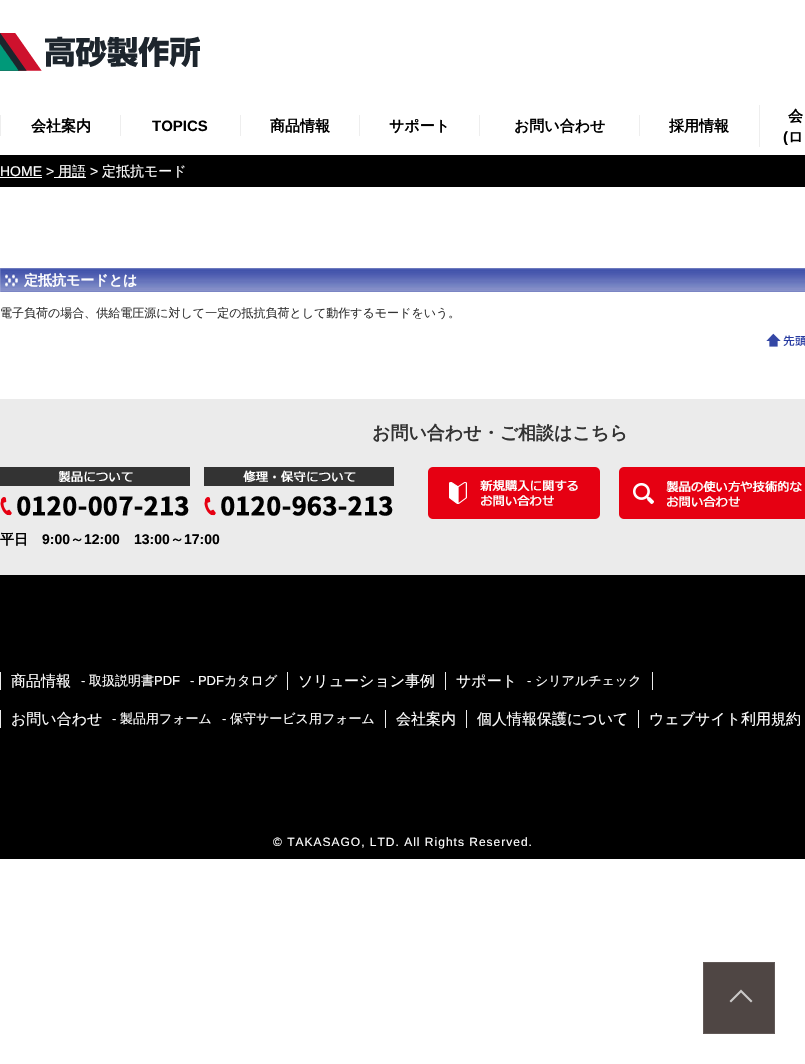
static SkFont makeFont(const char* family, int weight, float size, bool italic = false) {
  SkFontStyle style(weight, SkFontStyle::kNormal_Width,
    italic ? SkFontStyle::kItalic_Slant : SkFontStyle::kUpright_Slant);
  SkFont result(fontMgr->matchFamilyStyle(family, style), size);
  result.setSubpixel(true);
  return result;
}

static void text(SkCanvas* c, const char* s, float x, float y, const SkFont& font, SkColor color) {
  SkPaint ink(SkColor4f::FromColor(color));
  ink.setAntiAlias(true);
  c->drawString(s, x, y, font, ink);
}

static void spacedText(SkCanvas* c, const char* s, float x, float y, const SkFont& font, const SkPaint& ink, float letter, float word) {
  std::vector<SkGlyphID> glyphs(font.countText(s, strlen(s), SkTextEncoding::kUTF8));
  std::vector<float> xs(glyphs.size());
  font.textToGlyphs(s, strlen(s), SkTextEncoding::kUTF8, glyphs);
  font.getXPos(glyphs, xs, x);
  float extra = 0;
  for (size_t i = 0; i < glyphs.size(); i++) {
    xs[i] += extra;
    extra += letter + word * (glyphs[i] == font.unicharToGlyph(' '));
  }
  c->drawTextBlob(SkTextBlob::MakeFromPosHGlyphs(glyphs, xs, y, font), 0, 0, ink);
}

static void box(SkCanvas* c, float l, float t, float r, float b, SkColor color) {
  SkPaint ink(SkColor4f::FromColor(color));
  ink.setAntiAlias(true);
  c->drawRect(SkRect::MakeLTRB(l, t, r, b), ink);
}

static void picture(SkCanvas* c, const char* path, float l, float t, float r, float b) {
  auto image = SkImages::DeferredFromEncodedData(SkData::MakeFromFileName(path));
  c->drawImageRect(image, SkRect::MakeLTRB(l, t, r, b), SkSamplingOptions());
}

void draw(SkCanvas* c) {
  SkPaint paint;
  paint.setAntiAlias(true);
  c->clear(0xffffffff);
  picture(c, "img_01.png", 0, 33, 200, 71);
  box(c, 0, 115, 1, 136, 0xffeeeeee);
  SkFont face1 = makeFont("WenQuanYi Zen Hei", 700, 15);
  text(c, "会社案内", 31, 131, face1, 0xff000000);
  box(c, 120, 115, 121, 136, 0xffeeeeee);
  SkFont face2 = makeFont("Liberation Sans", 700, 15);
  text(c, "TOPICS", 152, 131, face2, 0xff000000);
  box(c, 240, 115, 241, 136, 0xffeeeeee);
  text(c, "商品情報", 270, 131, face1, 0xff000000);
  box(c, 359, 115, 360, 136, 0xffeeeeee);
  text(c, "サポート", 389, 131, face1, 0xff000000);
  box(c, 479, 115, 480, 136, 0xffeeeeee);
  text(c, "お問い合わせ", 514, 131, face1, 0xff000000);
  box(c, 639, 115, 640, 136, 0xffeeeeee);
  text(c, "採用情報", 669, 131, face1, 0xff000000);
  box(c, 759, 105, 760, 147, 0xffeeeeee);
  text(c, "会", 788, 121, face1, 0xff000000);
  text(c, "(", 783, 142, face2, 0xff000000);
  text(c, "ロ", 788, 142, face1, 0xff000000);
  box(c, 0, 155, 805, 187, 0xff000000);
  SkFont face3 = makeFont("Liberation Sans", 400, 14);
  text(c, "HOME >", 0, 176, face3, 0xffffffff);
  box(c, 0, 177, 42, 178, 0xffffffff);
  box(c, 54, 177, 86, 178, 0xffffffff);
  SkFont face4 = makeFont("WenQuanYi Zen Hei", 500, 14);
  text(c, "用語", 58, 176, face4, 0xffffffff);
  text(c, ">", 90, 176, face3, 0xffffffff);
  text(c, "定抵抗モード", 102, 176, face4, 0xffffffff);
  picture(c, "img_02.png", 0, 268, 805, 292);
  SkFont face5 = makeFont("WenQuanYi Zen Hei", 700, 14);
  text(c, "定抵抗モードとは", 24, 285, face5, 0xffffffff);
  SkFont face6 = makeFont("WenQuanYi Zen Hei", 500, 12);
  text(c, "電子負荷の場合、供給電圧源に対して一定の抵抗負荷として動作するモードをいう。", 0, 317, face6, 0xff333333);
  picture(c, "img_03.png", 766, 333, 805, 347);
  box(c, 0, 399, 805, 575, 0xffebebeb);
  SkFont face7 = makeFont("WenQuanYi Zen Hei", 700, 18);
  text(c, "お問い合わせ・ご相談はこちら", 372, 439, face7, 0xff333333);
  picture(c, "img_04.png", 0, 467, 394, 516);
  picture(c, "img_05.png", 428, 467, 600, 519);
  picture(c, "img_06.png", 619, 467, 805, 519);
  text(c, "平日", 0, 544, face5, 0xff000000);
  SkFont face8 = makeFont("Liberation Sans", 700, 14);
  text(c, "9:00", 42, 544, face8, 0xff000000);
  text(c, "～", 70, 544, face5, 0xff000000);
  text(c, "12:00", 84, 544, face8, 0xff000000);
  text(c, "13:00", 134, 544, face8, 0xff000000);
  text(c, "～", 170, 544, face5, 0xff000000);
  text(c, "17:00", 184, 544, face8, 0xff000000);
  box(c, 0, 575, 805, 859, 0xff000000);
  box(c, 287, 672, 288, 690, 0xffebebeb);
  box(c, 0, 672, 1, 690, 0xffebebeb);
  SkFont face9 = makeFont("WenQuanYi Zen Hei", 500, 15);
  text(c, "商品情報", 11, 686, face9, 0xffffffff);
  SkFont face10 = makeFont("Liberation Sans", 400, 13);
  text(c, "-", 81, 685, face10, 0xffffffff);
  SkFont face11 = makeFont("WenQuanYi Zen Hei", 500, 13);
  text(c, "取扱説明書", 89, 685, face11, 0xffffffff);
  text(c, "PDF", 154, 685, face10, 0xffffffff);
  text(c, "- PDF", 190, 685, face10, 0xffffffff);
  text(c, "カタログ", 224, 685, face11, 0xffffffff);
  box(c, 445, 672, 446, 690, 0xffebebeb);
  text(c, "ソリューション事例", 298, 686, face9, 0xffffffff);
  box(c, 652, 672, 653, 690, 0xffebebeb);
  text(c, "サポート", 456, 686, face9, 0xffffffff);
  text(c, "-", 527, 685, face10, 0xffffffff);
  text(c, "シリアルチェック", 535, 685, face11, 0xffffffff);
  box(c, 385, 710, 386, 728, 0xffebebeb);
  box(c, 0, 710, 1, 728, 0xffebebeb);
  text(c, "お問い合わせ", 11, 724, face9, 0xffffffff);
  text(c, "-", 112, 723, face10, 0xffffffff);
  text(c, "製品用フォーム", 120, 723, face11, 0xffffffff);
  text(c, "-", 222, 723, face10, 0xffffffff);
  text(c, "保守サービス用フォーム", 230, 723, face11, 0xffffffff);
  box(c, 466, 710, 467, 728, 0xffebebeb);
  text(c, "会社案内", 396, 724, face9, 0xffffffff);
  box(c, 638, 710, 639, 728, 0xffebebeb);
  text(c, "個人情報保護について", 477, 724, face9, 0xffffffff);
  text(c, "ウェブサイト利用規約", 649, 724, face9, 0xffffffff);
  SkFont face12 = makeFont("Liberation Sans", 400, 12);
  paint.setColor(0xffffffff);
  spacedText(c, "© TAKASAGO, LTD. All Rights Reserved.", 273, 846, face12, paint, 1, 0);
  paint.setColor(0xff4f4644);
  c->drawRect(SkRect::MakeLTRB(703.5f, 962.5f, 774.5f, 1033.5f), paint);
  paint.setStyle(SkPaint::kStroke_Style);
  paint.setStrokeWidth(1);
  paint.setColor(0xff615957);
  c->drawRect(SkRect::MakeLTRB(703.5f, 962.5f, 774.5f, 1033.5f), paint);
  paint.setStyle(SkPaint::kFill_Style);
  paint.setColor(0xffcac8c7);
  c->drawPath(SkPathBuilder().moveTo(729.5f, 1001).lineTo(741, 989.5f).lineTo(741, 992.5f).lineTo(731, 1002.5f).close().moveTo(741, 989.5f).lineTo(752.5f, 1001).lineTo(751, 1002.5f).lineTo(741, 992.5f).close().detach(), paint);
}
